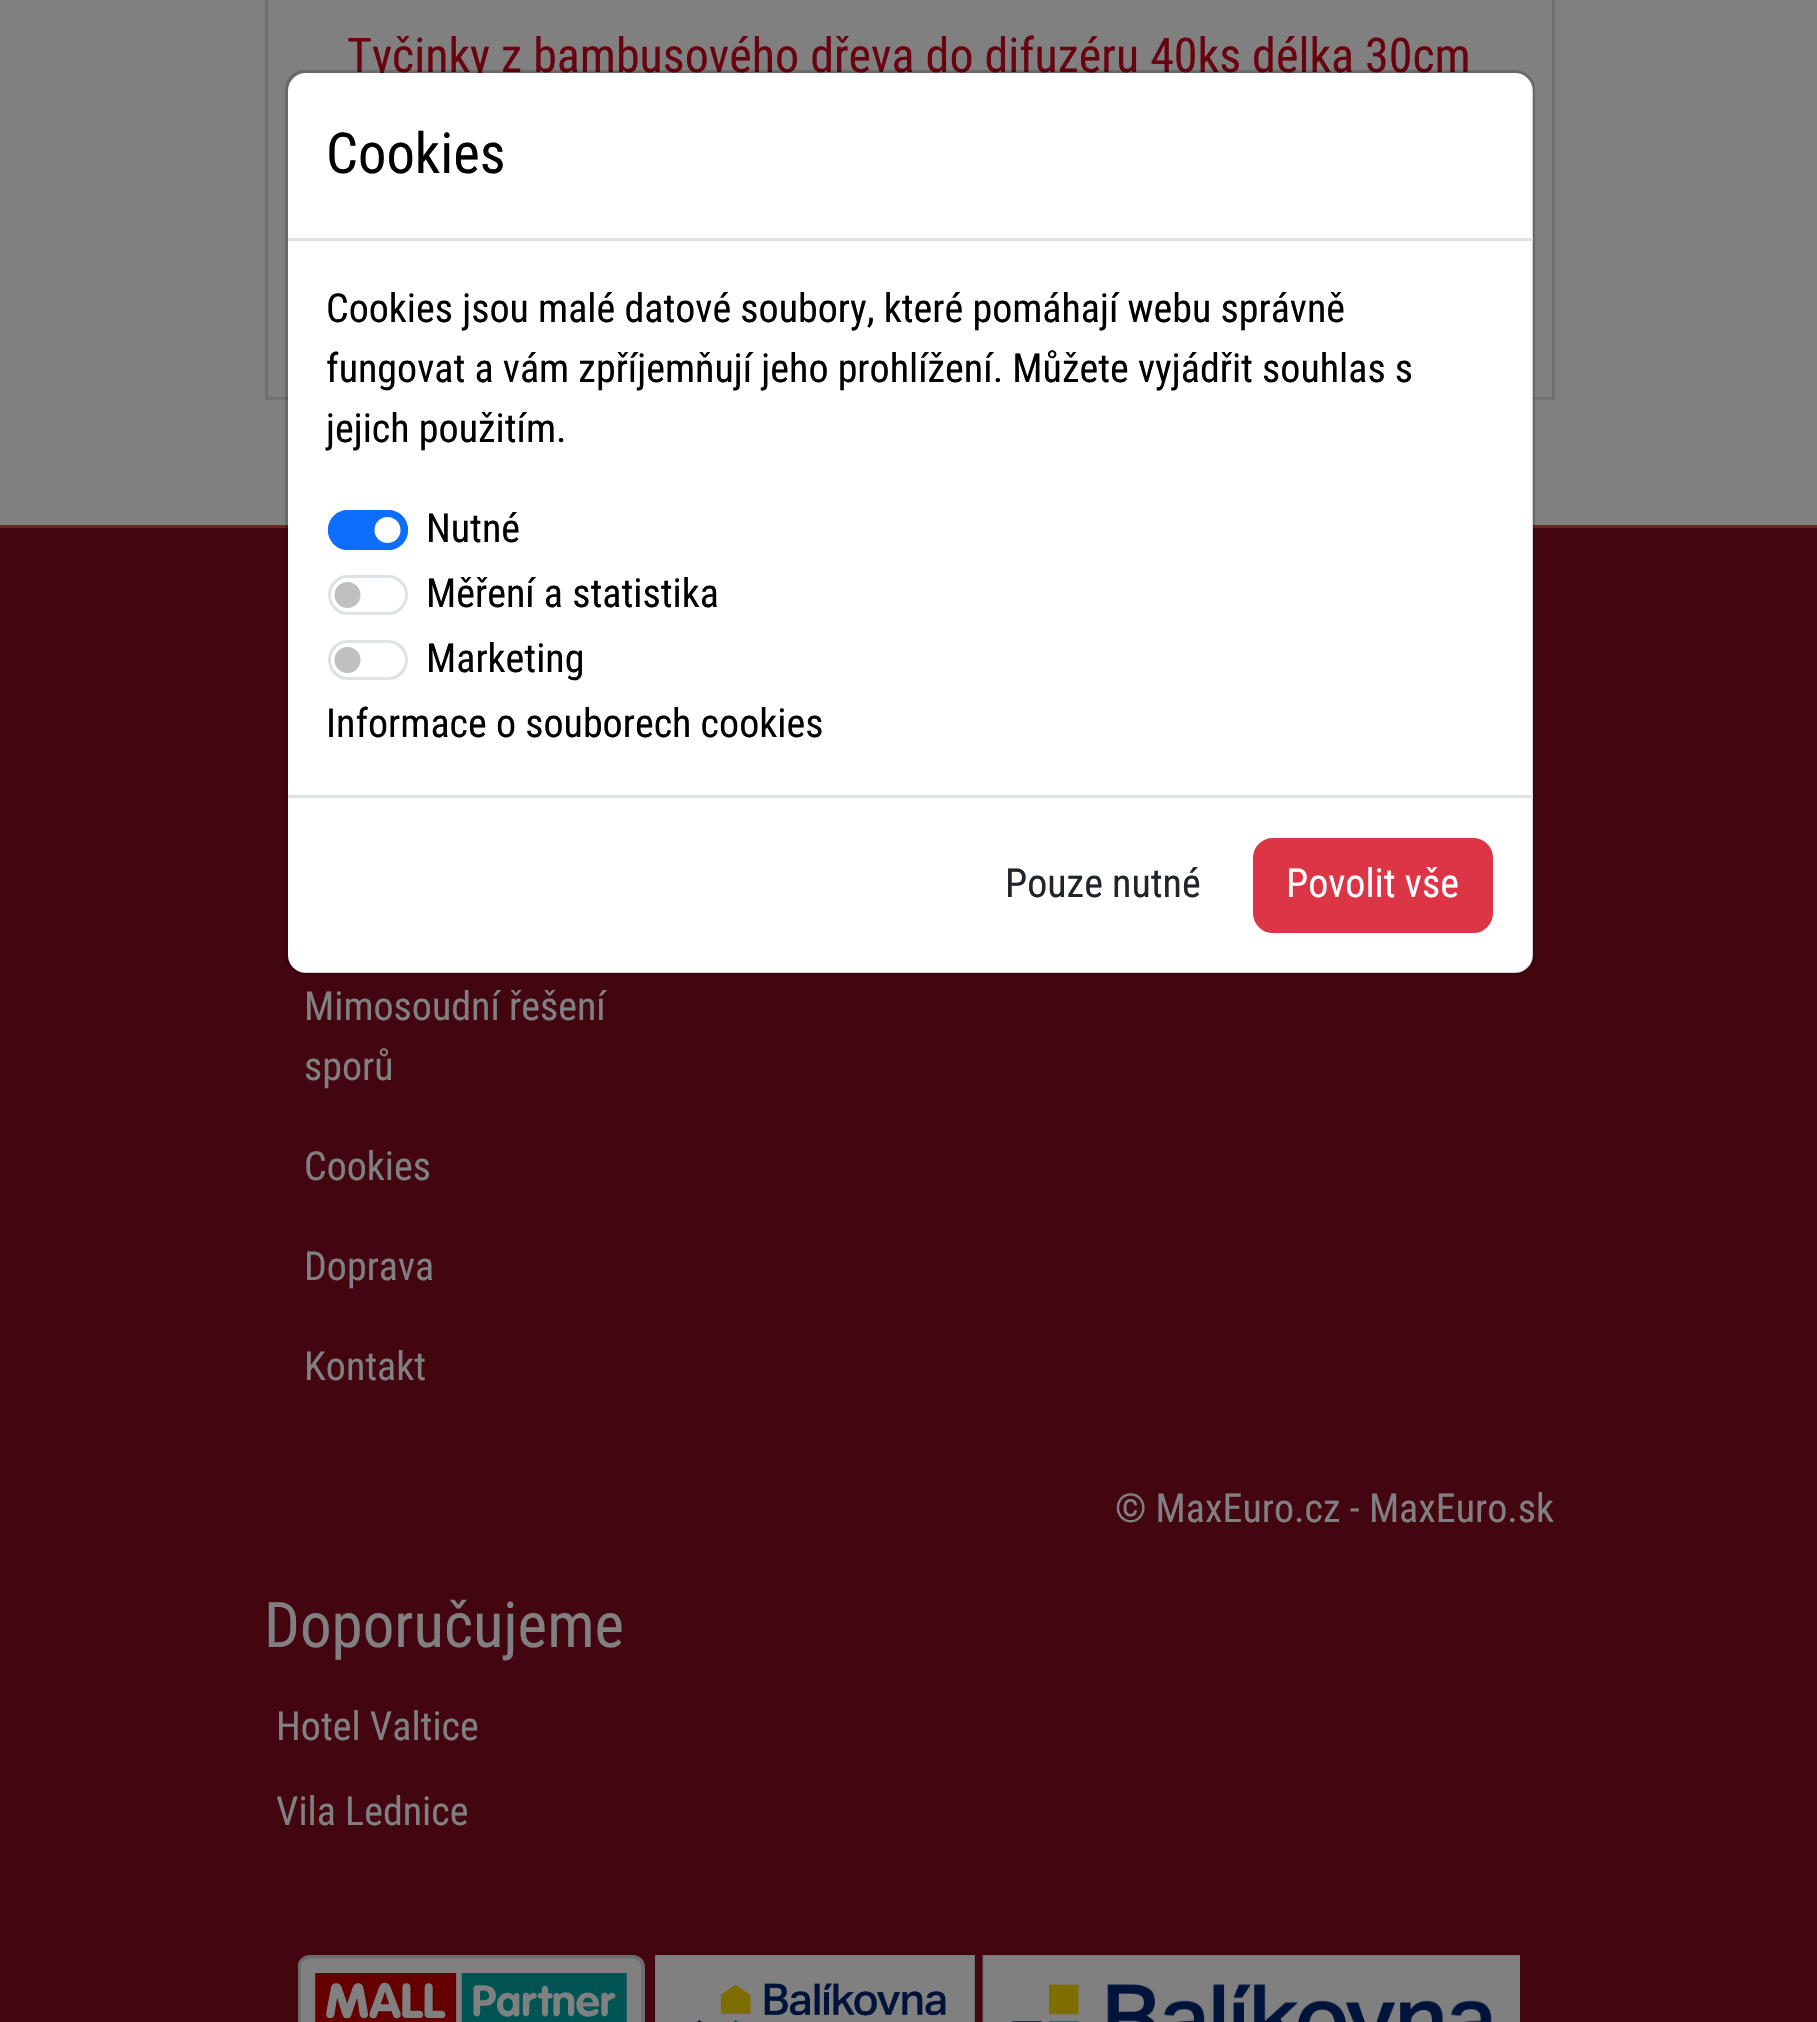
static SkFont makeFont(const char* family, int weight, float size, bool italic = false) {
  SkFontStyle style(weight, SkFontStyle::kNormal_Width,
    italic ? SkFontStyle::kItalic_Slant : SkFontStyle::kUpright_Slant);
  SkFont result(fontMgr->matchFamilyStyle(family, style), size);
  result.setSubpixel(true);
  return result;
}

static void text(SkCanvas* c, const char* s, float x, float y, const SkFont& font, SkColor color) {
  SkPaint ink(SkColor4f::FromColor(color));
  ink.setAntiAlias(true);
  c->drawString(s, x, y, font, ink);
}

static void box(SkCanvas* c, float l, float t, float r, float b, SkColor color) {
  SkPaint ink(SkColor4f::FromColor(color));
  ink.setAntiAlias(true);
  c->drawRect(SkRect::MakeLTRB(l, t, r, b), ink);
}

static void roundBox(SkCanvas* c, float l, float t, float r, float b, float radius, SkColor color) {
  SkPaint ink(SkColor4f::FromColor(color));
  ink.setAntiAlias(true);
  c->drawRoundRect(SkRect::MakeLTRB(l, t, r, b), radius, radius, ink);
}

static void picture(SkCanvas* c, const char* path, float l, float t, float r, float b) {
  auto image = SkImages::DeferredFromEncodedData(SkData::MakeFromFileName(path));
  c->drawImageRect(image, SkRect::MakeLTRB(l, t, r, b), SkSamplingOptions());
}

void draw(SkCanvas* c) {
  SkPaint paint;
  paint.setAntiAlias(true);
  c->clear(0xff808080);
  paint.setStyle(SkPaint::kStroke_Style);
  paint.setStrokeWidth(3);
  paint.setColor(0xff6f7173);
  c->drawRect(SkRect::MakeLTRB(266.5f, -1.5f, 1553.5f, 398.5f), paint);
  SkFont face1 = makeFont("Roboto Condensed", 400, 48);
  text(c, "Tyčinky z bambusového dřeva do difuzéru 40ks délka 30cm", 347, 72, face1, 0xff68030f);
  box(c, 0, 528, 1817, 2022, 0xff430510);
  box(c, 0, 525, 1817, 528, 0xff801918);
  roundBox(c, 288, 73, 1533, 973, 18, 0xffffffff);
  paint.setColor(0x2e000000);
  c->drawRoundRect(SkRect::MakeLTRB(286.5f, 71.5f, 1533.5f, 973.5f), 18.5f, 18.5f, paint);
  box(c, 288, 238, 1533, 241, 0xffdee2e6);
  SkFont face2 = makeFont("Roboto Condensed", 400, 56.5f);
  text(c, "Cookies", 326, 173, face2, 0xff000000);
  SkFont face3 = makeFont("Roboto Condensed", 400, 40);
  text(c, "Cookies jsou malé datové soubory, které pomáhají webu správně", 326, 322, face3, 0xff000000);
  text(c, "fungovat a vám zpříjemňují jeho prohlížení. Můžete vyjádřit souhlas s", 326, 382, face3, 0xff000000);
  text(c, "jejich použitím.", 326, 442, face3, 0xff000000);
  roundBox(c, 328, 510, 408, 550, 20, 0xff0d6efd);
  paint.setStyle(SkPaint::kFill_Style);
  paint.setColor(0xffffffff);
  c->drawCircle(387.5f, 530, 13, paint);
  paint.setStyle(SkPaint::kStroke_Style);
  paint.setColor(0xff0d6efd);
  c->drawRoundRect(SkRect::MakeLTRB(329.5f, 511.5f, 406.5f, 548.5f), 18.5f, 18.5f, paint);
  text(c, "Nutné", 426, 542, face3, 0xff000000);
  paint.setStyle(SkPaint::kFill_Style);
  paint.setColor(0xffbfbfbf);
  c->drawCircle(347.5f, 595, 13, paint);
  paint.setStyle(SkPaint::kStroke_Style);
  paint.setColor(0xffdee2e6);
  c->drawRoundRect(SkRect::MakeLTRB(329.5f, 576.5f, 406.5f, 613.5f), 18.5f, 18.5f, paint);
  text(c, "Měření a statistika", 426, 607, face3, 0xff000000);
  paint.setStyle(SkPaint::kFill_Style);
  paint.setColor(0xffbfbfbf);
  c->drawCircle(347.5f, 660, 13, paint);
  paint.setStyle(SkPaint::kStroke_Style);
  paint.setColor(0xffdee2e6);
  c->drawRoundRect(SkRect::MakeLTRB(329.5f, 641.5f, 406.5f, 678.5f), 18.5f, 18.5f, paint);
  text(c, "Marketing", 426, 672, face3, 0xff000000);
  text(c, "Informace o souborech cookies", 326, 737, face3, 0xff000000);
  box(c, 288, 795, 1533, 798, 0xffdee2e6);
  text(c, "Pouze nutné", 1005, 897, face3, 0xff212529);
  paint.setStyle(SkPaint::kFill_Style);
  paint.setColor(0xffdc3545);
  c->drawRoundRect(SkRect::MakeLTRB(1254.5f, 839.5f, 1491.5f, 931.5f), 18.5f, 18.5f, paint);
  paint.setStyle(SkPaint::kStroke_Style);
  c->drawRoundRect(SkRect::MakeLTRB(1254.5f, 839.5f, 1491.5f, 931.5f), 18.5f, 18.5f, paint);
  text(c, "Povolit vše", 1286, 897, face3, 0xffffffff);
  text(c, "Mimosoudní řešení", 304, 1020, face3, 0xff808080);
  text(c, "sporů", 304, 1080, face3, 0xff808080);
  text(c, "Cookies", 304, 1180, face3, 0xff808080);
  text(c, "Doprava", 304, 1280, face3, 0xff808080);
  text(c, "Kontakt", 304, 1380, face3, 0xff808080);
  text(c, "© MaxEuro.cz - MaxEuro.sk", 1115, 1522, face3, 0xff808080);
  SkFont face4 = makeFont("Roboto Condensed", 400, 63);
  text(c, "Doporučujeme", 264, 1647, face4, 0xff808080);
  text(c, "Hotel Valtice", 276, 1740, face3, 0xff808080);
  text(c, "Vila Lednice", 276, 1825, face3, 0xff808080);
  picture(c, "img_01.png", 298, 1955, 645, 2022);
  picture(c, "img_02.png", 655, 1955, 975, 2022);
  picture(c, "img_03.png", 982, 1955, 1520, 2022);
}
